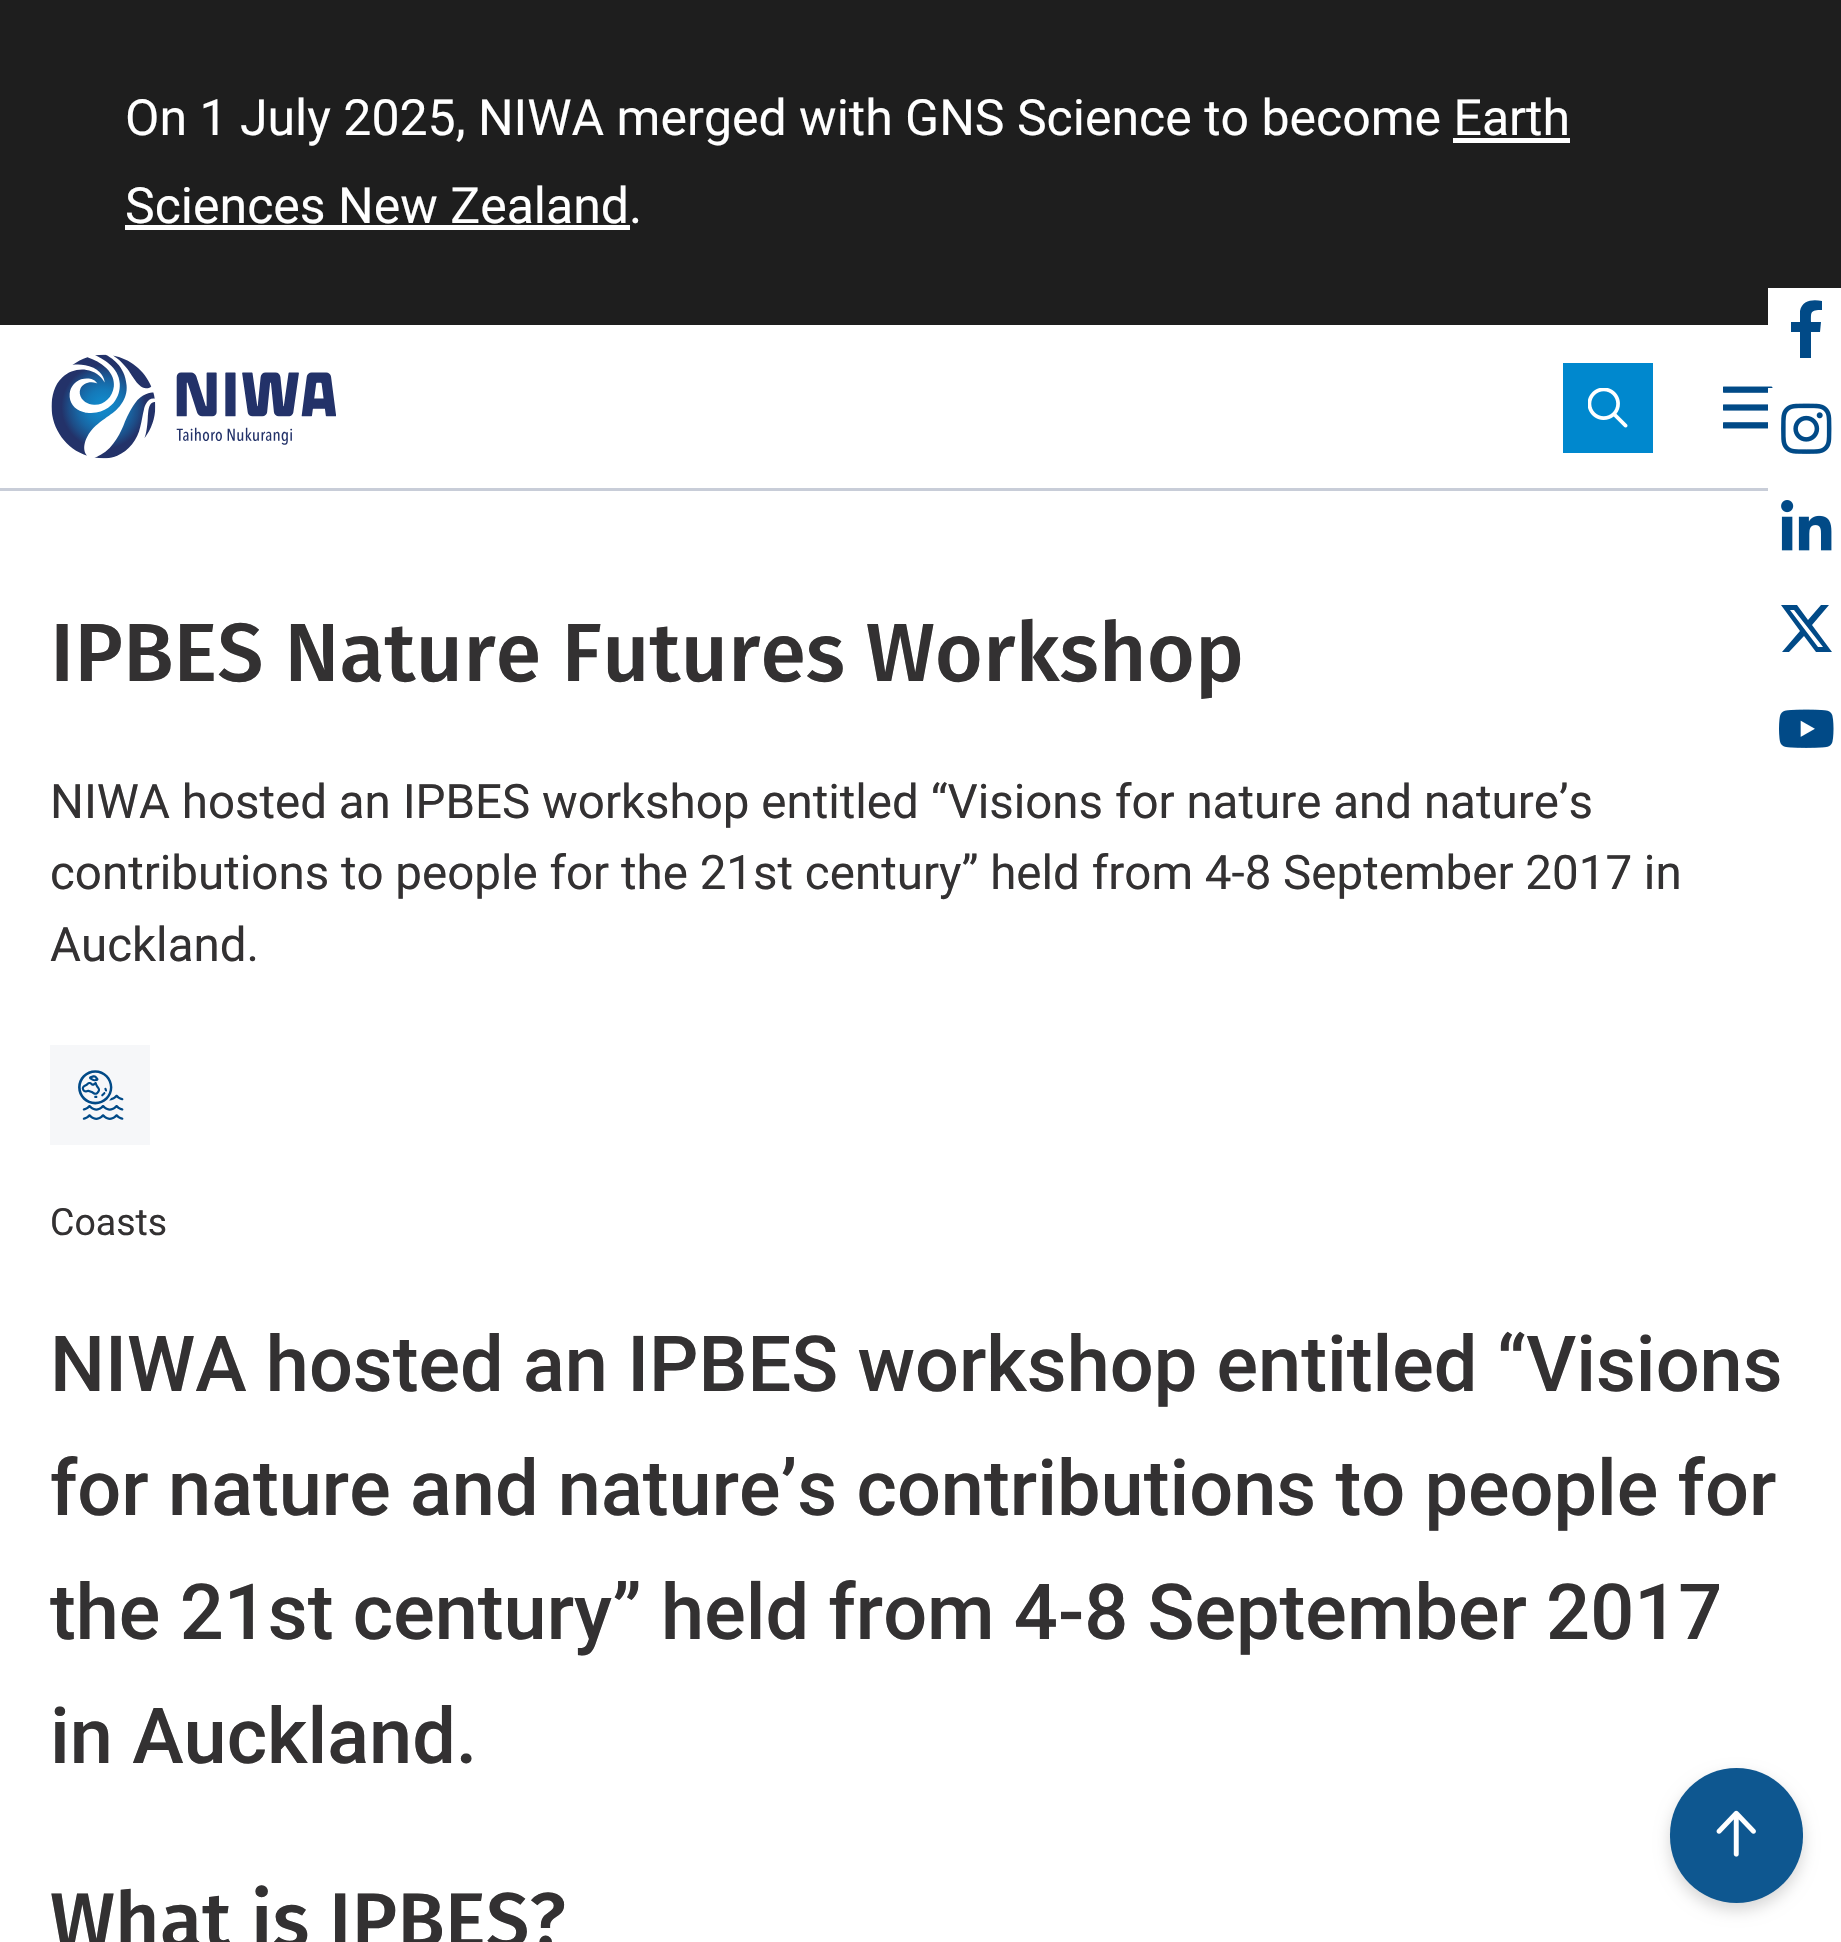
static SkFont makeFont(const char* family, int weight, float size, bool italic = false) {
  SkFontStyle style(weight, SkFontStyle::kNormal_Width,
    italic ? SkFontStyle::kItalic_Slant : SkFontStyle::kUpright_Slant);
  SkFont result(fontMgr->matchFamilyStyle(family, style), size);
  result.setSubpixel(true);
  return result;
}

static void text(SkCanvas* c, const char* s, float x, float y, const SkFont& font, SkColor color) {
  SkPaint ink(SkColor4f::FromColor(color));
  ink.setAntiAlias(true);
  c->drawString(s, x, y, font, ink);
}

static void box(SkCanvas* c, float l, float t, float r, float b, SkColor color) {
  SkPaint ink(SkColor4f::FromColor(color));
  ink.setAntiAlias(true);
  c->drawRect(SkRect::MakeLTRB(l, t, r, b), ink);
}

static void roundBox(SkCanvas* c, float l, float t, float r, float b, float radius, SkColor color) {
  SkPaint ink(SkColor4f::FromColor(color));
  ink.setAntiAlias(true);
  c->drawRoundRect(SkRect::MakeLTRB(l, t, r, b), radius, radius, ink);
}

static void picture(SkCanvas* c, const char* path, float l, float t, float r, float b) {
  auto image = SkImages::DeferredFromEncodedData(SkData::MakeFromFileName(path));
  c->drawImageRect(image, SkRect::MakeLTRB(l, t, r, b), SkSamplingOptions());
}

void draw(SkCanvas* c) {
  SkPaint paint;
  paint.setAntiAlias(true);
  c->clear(0xffffffff);
  box(c, 0, 0, 1841, 325, 0xff1e1e1e);
  SkFont face1 = makeFont("Roboto", 400, 50);
  text(c, "On 1 July 2025, NIWA merged with GNS Science to become Earth", 125, 135, face1, 0xffffffff);
  text(c, "Sciences New Zealand.", 125, 223, face1, 0xffffffff);
  box(c, 1453, 138, 1570, 143, 0xffffffff);
  box(c, 125, 225, 630, 230, 0xffffffff);
  box(c, 0, 488, 1768, 491, 0xffc8cdd8);
  picture(c, "img_01.png", 51, 354, 336, 459);
  box(c, 1563, 363, 1653, 453, 0xff0088ce);
  picture(c, "img_02.png", 1588, 388, 1628, 428);
  picture(c, "img_03.png", 1723, 386, 1773, 429);
  box(c, 1768, 288, 1841, 325, 0xffffffff);
  paint.setColor(0xff014a87);
  c->drawPath(SkPathBuilder().moveTo(1820, 332).lineTo(1821, 322).lineTo(1811, 322).cubicTo(1811, 312, 1810, 310, 1822, 310).lineTo(1822, 301).cubicTo(1813, 299, 1802, 300, 1800, 311).lineTo(1800, 322).lineTo(1791, 322).lineTo(1791, 332).lineTo(1800, 332).lineTo(1800, 358).lineTo(1811, 358).lineTo(1811, 332).close().detach(), paint);
  box(c, 1768, 388, 1773, 429, 0xffffffff);
  picture(c, "img_04.png", 1781, 403, 1832, 454);
  picture(c, "img_05.png", 1781, 500, 1832, 551);
  c->drawPath(SkPathBuilder().moveTo(1821, 605).lineTo(1829, 605).lineTo(1812, 625).lineTo(1832, 652).lineTo(1816, 652).lineTo(1804, 636).lineTo(1789, 652).lineTo(1782, 652).lineTo(1800, 631).lineTo(1781, 605).lineTo(1797, 605).lineTo(1808, 620).close().moveTo(1818, 647).lineTo(1823, 647).lineTo(1794, 610).lineTo(1790, 610).close().detach(), paint);
  picture(c, "img_06.png", 1779, 709, 1834, 748);
  SkFont face2 = makeFont("Fira Sans", 500, 82.5f);
  text(c, "IPBES Nature Futures Workshop", 50, 681, face2, 0xff333132);
  SkFont face3 = makeFont("Roboto", 400, 47.5f);
  text(c, "NIWA hosted an IPBES workshop entitled “Visions for nature and nature’s", 50, 818, face3, 0xff333132);
  text(c, "contributions to people for the 21st century” held from 4-8 September 2017 in", 50, 889, face3, 0xff333132);
  text(c, "Auckland.", 50, 961, face3, 0xff333132);
  box(c, 50, 1045, 150, 1145, 0xfff6f7f9);
  picture(c, "img_07.png", 78, 1070, 124, 1120);
  SkFont face4 = makeFont("Roboto", 400, 37.5f);
  text(c, "Coasts", 50, 1235, face4, 0xff333132);
  SkFont face5 = makeFont("Roboto", 500, 77.5f);
  text(c, "NIWA hosted an IPBES workshop entitled “Visions", 50, 1391, face5, 0xff333132);
  text(c, "for nature and nature’s contributions to people for", 50, 1515, face5, 0xff333132);
  text(c, "the 21st century” held from 4-8 September 2017", 50, 1639, face5, 0xff333132);
  text(c, "in Auckland.", 50, 1763, face5, 0xff333132);
  SkFont face6 = makeFont("Fira Sans", 500, 77.5f);
  text(c, "What is IPBES?", 50, 1947, face6, 0xff333132);
  paint.setColor(0x29000000);
  paint.setMaskFilter(SkMaskFilter::MakeBlur(kNormal_SkBlurStyle, 7.5f));
  c->drawRoundRect(SkRect::MakeLTRB(1670, 1775, 1803, 1910), 66.5f, 66.5f, paint);
  paint.setMaskFilter(nullptr);
  roundBox(c, 1670, 1768, 1803, 1903, 66.5f, 0xff0e5790);
  picture(c, "img_08.png", 1716, 1810, 1756, 1857);
}
